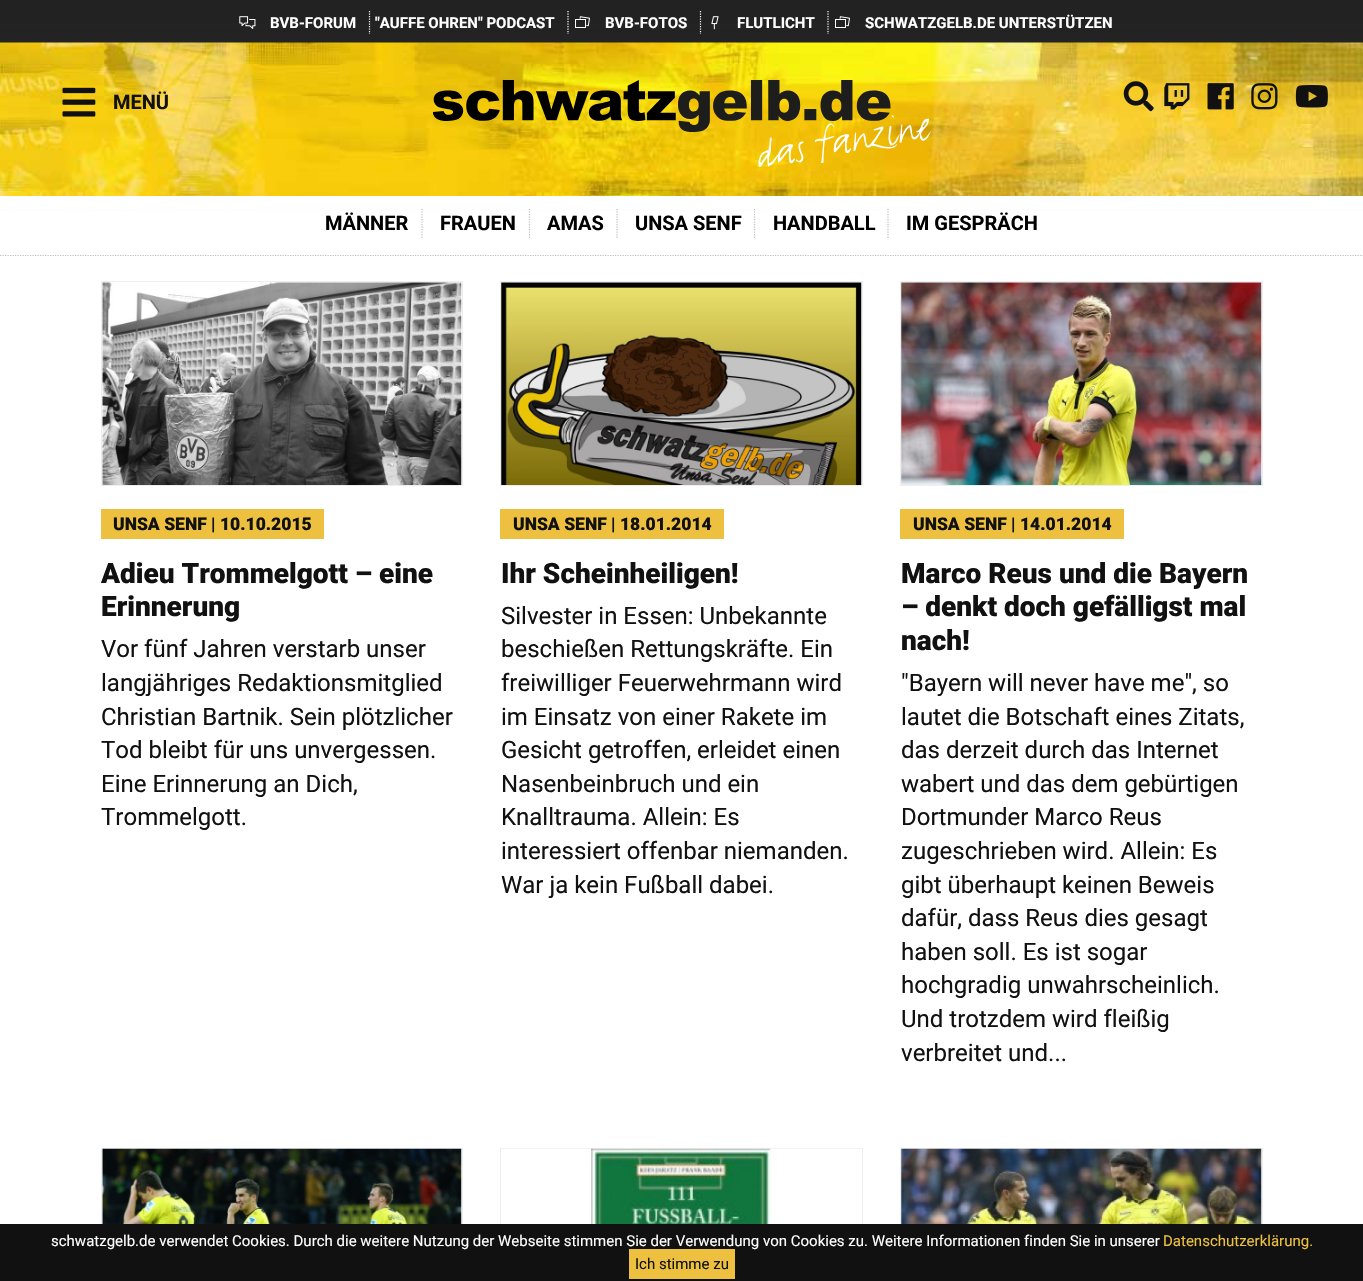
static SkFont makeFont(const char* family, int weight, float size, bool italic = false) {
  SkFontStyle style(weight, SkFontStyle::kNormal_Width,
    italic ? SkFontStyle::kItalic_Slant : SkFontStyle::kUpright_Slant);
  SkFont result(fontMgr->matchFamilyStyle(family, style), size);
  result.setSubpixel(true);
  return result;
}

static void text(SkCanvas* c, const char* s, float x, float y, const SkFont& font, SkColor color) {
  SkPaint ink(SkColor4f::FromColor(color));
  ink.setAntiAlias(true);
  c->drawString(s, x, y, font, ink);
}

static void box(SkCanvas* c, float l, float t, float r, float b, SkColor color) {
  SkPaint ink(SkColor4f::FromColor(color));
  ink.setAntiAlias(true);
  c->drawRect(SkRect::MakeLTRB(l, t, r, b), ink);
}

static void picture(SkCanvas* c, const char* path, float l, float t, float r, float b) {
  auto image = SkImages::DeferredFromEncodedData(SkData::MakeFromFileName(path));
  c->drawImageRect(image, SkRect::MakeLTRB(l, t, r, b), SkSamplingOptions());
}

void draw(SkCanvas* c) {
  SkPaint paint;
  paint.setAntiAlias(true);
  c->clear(0xffffffff);
  box(c, 0, 0, 1363, 43, 0xff222222);
  paint.setColor(0x40292929);
  paint.setMaskFilter(SkMaskFilter::MakeBlur(kNormal_SkBlurStyle, 5.5f));
  c->drawRect(SkRect::MakeLTRB(-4, 39, 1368, 200), paint);
  paint.setMaskFilter(nullptr);
  paint.setStyle(SkPaint::kStroke_Style);
  paint.setStrokeWidth(1.2f);
  paint.setColor(0xffffffff);
  paint.setPathEffect(SkDashPathEffect::Make({{1.25f, 1.25f}}, 0));
  c->drawPath(SkPathBuilder().moveTo(369.5f, 11).lineTo(369.5f, 34).detach(), paint);
  paint.setPathEffect(nullptr);
  picture(c, "img_01.png", 239, 16, 256, 29);
  SkFont face1 = makeFont("Roboto", 700, 15);
  text(c, "BVB-FORUM", 270, 28, face1, 0xffffffff);
  paint.setPathEffect(SkDashPathEffect::Make({{1.25f, 1.25f}}, 0));
  c->drawPath(SkPathBuilder().moveTo(568, 11).lineTo(568, 34).detach(), paint);
  paint.setPathEffect(nullptr);
  text(c, "\"AUFFE OHREN\" PODCAST", 375, 28, face1, 0xffffffff);
  paint.setPathEffect(SkDashPathEffect::Make({{1.25f, 1.25f}}, 0));
  c->drawPath(SkPathBuilder().moveTo(700.5f, 11).lineTo(700.5f, 34).detach(), paint);
  paint.setPathEffect(nullptr);
  picture(c, "img_02.png", 575, 16, 590, 28);
  text(c, "BVB-FOTOS", 605, 28, face1, 0xffffffff);
  paint.setPathEffect(SkDashPathEffect::Make({{1.25f, 1.25f}}, 0));
  c->drawPath(SkPathBuilder().moveTo(828, 11).lineTo(828, 34).detach(), paint);
  paint.setPathEffect(nullptr);
  picture(c, "img_03.png", 711, 16, 719, 30);
  text(c, "FLUTLICHT", 737, 28, face1, 0xffffffff);
  picture(c, "img_02.png", 835, 16, 850, 28);
  text(c, "SCHWATZGELB.DE UNTERSTÜTZEN", 865, 28, face1, 0xffffffff);
  picture(c, "img_04.png", 0, 42, 1363, 196);
  picture(c, "img_05.png", 433, 80, 931, 168);
  picture(c, "img_06.png", 62, 87, 96, 117);
  SkFont face2 = makeFont("Roboto", 700, 20);
  text(c, "MENÜ", 113, 109, face2, 0xff111111);
  picture(c, "img_07.png", 1123, 81, 1154, 112);
  picture(c, "img_08.png", 1164, 83, 1190, 110);
  picture(c, "img_09.png", 1207, 83, 1234, 110);
  picture(c, "img_10.png", 1251, 83, 1278, 110);
  picture(c, "img_11.png", 1295, 85, 1328, 108);
  box(c, 0, 196, 1363, 209, 0xffffffff);
  paint.setColor(0xffbfbfbf);
  paint.setPathEffect(SkDashPathEffect::Make({{1.25f, 1.25f}}, 0));
  c->drawPath(SkPathBuilder().moveTo(0, 255.5f).lineTo(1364, 255.5f).detach(), paint);
  paint.setPathEffect(nullptr);
  paint.setPathEffect(SkDashPathEffect::Make({{1.25f, 1.25f}}, 0));
  c->drawPath(SkPathBuilder().moveTo(422, 209).lineTo(422, 239).detach(), paint);
  paint.setPathEffect(nullptr);
  text(c, "MÄNNER", 325, 230, face2, 0xff000000);
  paint.setPathEffect(SkDashPathEffect::Make({{1.25f, 1.25f}}, 0));
  c->drawPath(SkPathBuilder().moveTo(529.5f, 209).lineTo(529.5f, 239).detach(), paint);
  paint.setPathEffect(nullptr);
  text(c, "FRAUEN", 440, 230, face2, 0xff000000);
  paint.setPathEffect(SkDashPathEffect::Make({{1.25f, 1.25f}}, 0));
  c->drawPath(SkPathBuilder().moveTo(617, 209).lineTo(617, 239).detach(), paint);
  paint.setPathEffect(nullptr);
  text(c, "AMAS", 547, 230, face2, 0xff000000);
  paint.setPathEffect(SkDashPathEffect::Make({{1.25f, 1.25f}}, 0));
  c->drawPath(SkPathBuilder().moveTo(754.5f, 209).lineTo(754.5f, 239).detach(), paint);
  paint.setPathEffect(nullptr);
  text(c, "UNSA SENF", 635, 230, face2, 0xff000000);
  paint.setPathEffect(SkDashPathEffect::Make({{1.25f, 1.25f}}, 0));
  c->drawPath(SkPathBuilder().moveTo(888, 209).lineTo(888, 239).detach(), paint);
  paint.setPathEffect(nullptr);
  text(c, "HANDBALL", 773, 230, face2, 0xff000000);
  text(c, "IM GESPRÄCH", 906, 230, face2, 0xff000000);
  paint.setStrokeWidth(1);
  paint.setColor(0xffeeeeee);
  c->drawRect(SkRect::MakeLTRB(101.5f, 281.5f, 462.5f, 485.5f), paint);
  picture(c, "img_12.png", 102, 282, 462, 485);
  box(c, 101, 509, 324, 539, 0xffedc13f);
  SkFont face3 = makeFont("Roboto", 900, 17.5f);
  text(c, "UNSA SENF | 10.10.2015", 113, 530, face3, 0xff111111);
  SkFont face4 = makeFont("Roboto", 900, 28);
  text(c, "Adieu Trommelgott – eine", 101, 583, face4, 0xff111111);
  text(c, "Erinnerung", 101, 616, face4, 0xff111111);
  SkFont face5 = makeFont("Roboto", 400, 24);
  text(c, "Vor fünf Jahren verstarb unser", 101, 657, face5, 0xff111111);
  text(c, "langjähriges Redaktionsmitglied", 101, 691, face5, 0xff111111);
  text(c, "Christian Bartnik. Sein plötzlicher", 101, 725, face5, 0xff111111);
  text(c, "Tod bleibt für uns unvergessen.", 101, 758, face5, 0xff111111);
  text(c, "Eine Erinnerung an Dich,", 101, 792, face5, 0xff111111);
  text(c, "Trommelgott.", 101, 825, face5, 0xff111111);
  c->drawRect(SkRect::MakeLTRB(500.5f, 281.5f, 862.5f, 485.5f), paint);
  picture(c, "img_13.png", 501, 282, 862, 485);
  box(c, 500, 509, 724, 539, 0xffedc13f);
  text(c, "UNSA SENF | 18.01.2014", 513, 530, face3, 0xff111111);
  text(c, "Ihr Scheinheiligen!", 501, 583, face4, 0xff111111);
  text(c, "Silvester in Essen: Unbekannte", 501, 624, face5, 0xff111111);
  text(c, "beschießen Rettungskräfte. Ein", 501, 657, face5, 0xff111111);
  text(c, "freiwilliger Feuerwehrmann wird", 501, 691, face5, 0xff111111);
  text(c, "im Einsatz von einer Rakete im", 501, 725, face5, 0xff111111);
  text(c, "Gesicht getroffen, erleidet einen", 501, 758, face5, 0xff111111);
  text(c, "Nasenbeinbruch und ein", 501, 792, face5, 0xff111111);
  text(c, "Knalltrauma. Allein: Es", 501, 825, face5, 0xff111111);
  text(c, "interessiert offenbar niemanden.", 501, 859, face5, 0xff111111);
  text(c, "War ja kein Fußball dabei.", 501, 893, face5, 0xff111111);
  c->drawRect(SkRect::MakeLTRB(900.5f, 281.5f, 1262.5f, 485.5f), paint);
  picture(c, "img_14.png", 901, 282, 1262, 485);
  box(c, 900, 509, 1124, 539, 0xffedc13f);
  text(c, "UNSA SENF | 14.01.2014", 913, 530, face3, 0xff111111);
  text(c, "Marco Reus und die Bayern", 901, 583, face4, 0xff111111);
  text(c, "– denkt doch gefälligst mal", 901, 616, face4, 0xff111111);
  text(c, "nach!", 901, 650, face4, 0xff111111);
  text(c, "\"Bayern will never have me\", so", 901, 691, face5, 0xff111111);
  text(c, "lautet die Botschaft eines Zitats,", 901, 725, face5, 0xff111111);
  text(c, "das derzeit durch das Internet", 901, 758, face5, 0xff111111);
  text(c, "wabert und das dem gebürtigen", 901, 792, face5, 0xff111111);
  text(c, "Dortmunder Marco Reus", 901, 825, face5, 0xff111111);
  text(c, "zugeschrieben wird. Allein: Es", 901, 859, face5, 0xff111111);
  text(c, "gibt überhaupt keinen Beweis", 901, 893, face5, 0xff111111);
  text(c, "dafür, dass Reus dies gesagt", 901, 926, face5, 0xff111111);
  text(c, "haben soll. Es ist sogar", 901, 960, face5, 0xff111111);
  text(c, "hochgradig unwahrscheinlich.", 901, 993, face5, 0xff111111);
  text(c, "Und trotzdem wird fleißig", 901, 1027, face5, 0xff111111);
  text(c, "verbreitet und...", 901, 1061, face5, 0xff111111);
  c->drawRect(SkRect::MakeLTRB(101.5f, 1148.5f, 462.5f, 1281.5f), paint);
  picture(c, "img_15.png", 102, 1148, 462, 1224);
  c->drawRect(SkRect::MakeLTRB(500.5f, 1148.5f, 862.5f, 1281.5f), paint);
  picture(c, "img_16.png", 502, 1148, 861, 1224);
  c->drawRect(SkRect::MakeLTRB(900.5f, 1148.5f, 1262.5f, 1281.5f), paint);
  picture(c, "img_17.png", 901, 1148, 1262, 1224);
  box(c, 0, 1224, 1363, 1281, 0xff111111);
  SkFont face6 = makeFont("Roboto", 400, 15);
  text(c, "schwatzgelb.de verwendet Cookies. Durch die weitere Nutzung der Webseite stimmen Sie der Verwendung von Cookies zu. Weitere Informationen finden Sie in unserer", 51, 1246, face6, 0xffffffff);
  text(c, "Datenschutzerklärung.", 1163, 1246, face6, 0xffedc13f);
  box(c, 629, 1249, 735, 1279, 0xffedc13f);
  text(c, "Ich stimme zu", 635, 1269, face6, 0xff111111);
}
